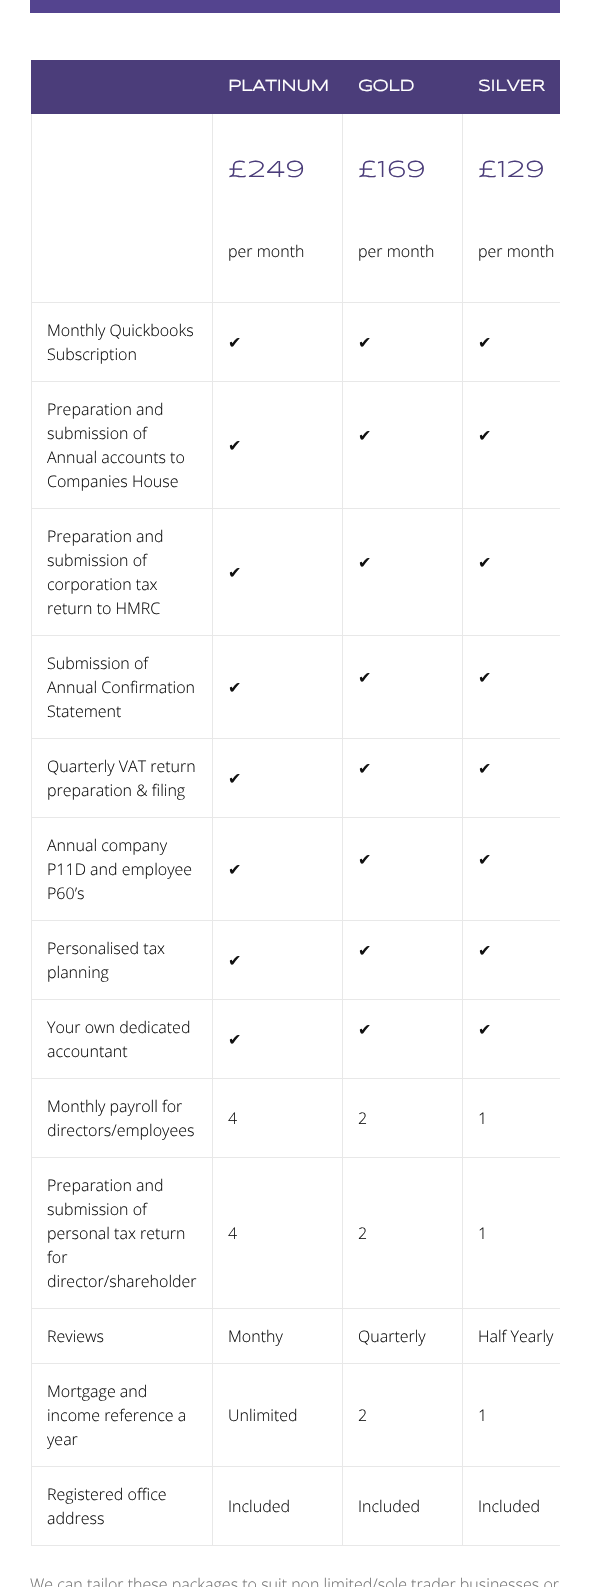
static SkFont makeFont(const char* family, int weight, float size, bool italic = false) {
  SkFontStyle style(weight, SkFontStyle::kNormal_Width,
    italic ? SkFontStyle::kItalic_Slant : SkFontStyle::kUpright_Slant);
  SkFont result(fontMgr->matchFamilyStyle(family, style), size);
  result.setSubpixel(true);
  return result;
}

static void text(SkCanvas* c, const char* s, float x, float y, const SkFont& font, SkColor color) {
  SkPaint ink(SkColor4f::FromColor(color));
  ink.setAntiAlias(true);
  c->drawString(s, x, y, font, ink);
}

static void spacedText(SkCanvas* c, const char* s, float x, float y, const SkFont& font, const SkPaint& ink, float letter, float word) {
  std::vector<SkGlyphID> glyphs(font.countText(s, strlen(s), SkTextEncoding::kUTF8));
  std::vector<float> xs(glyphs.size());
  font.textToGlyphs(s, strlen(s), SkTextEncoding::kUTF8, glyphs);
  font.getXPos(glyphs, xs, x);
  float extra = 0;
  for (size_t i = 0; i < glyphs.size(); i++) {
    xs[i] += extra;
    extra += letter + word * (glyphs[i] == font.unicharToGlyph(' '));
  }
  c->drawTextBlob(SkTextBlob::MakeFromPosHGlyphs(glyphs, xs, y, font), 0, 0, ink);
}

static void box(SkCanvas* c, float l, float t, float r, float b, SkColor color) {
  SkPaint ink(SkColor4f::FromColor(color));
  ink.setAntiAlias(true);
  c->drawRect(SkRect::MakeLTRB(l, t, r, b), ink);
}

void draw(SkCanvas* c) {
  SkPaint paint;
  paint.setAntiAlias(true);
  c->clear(0xffffffff);
  box(c, 30, 0, 560, 13, 0xff54448f);
  box(c, 31, 60, 560, 114, 0xff4b3d7a);
  SkFont face1 = makeFont("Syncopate", 700, 16);
  text(c, "PLATINUM", 228, 91, face1, 0xffffffff);
  text(c, "GOLD", 358, 91, face1, 0xffffffff);
  text(c, "SILVER", 478, 91, face1, 0xffffffff);
  box(c, 212, 114, 213, 1546, 0xffe8e8e8);
  box(c, 31, 302, 213, 303, 0xffe8e8e8);
  box(c, 31, 114, 32, 303, 0xffe8e8e8);
  box(c, 342, 114, 343, 1546, 0xffe8e8e8);
  box(c, 213, 302, 343, 303, 0xffe8e8e8);
  SkFont face2 = makeFont("Syncopate", 400, 24);
  paint.setColor(0xff4b3d7a);
  spacedText(c, "£249", 228, 177, face2, paint, 1, 0);
  SkFont face3 = makeFont("Open Sans", 300, 16);
  text(c, "per month", 228, 257, face3, 0xff111111);
  box(c, 462, 114, 463, 1546, 0xffe8e8e8);
  box(c, 343, 302, 560, 303, 0xffe8e8e8);
  spacedText(c, "£169", 358, 177, face2, paint, 1, 0);
  text(c, "per month", 358, 257, face3, 0xff111111);
  spacedText(c, "£129", 478, 177, face2, paint, 1, 0);
  text(c, "per month", 478, 257, face3, 0xff111111);
  box(c, 31, 381, 560, 382, 0xffe8e8e8);
  box(c, 31, 303, 32, 382, 0xffe8e8e8);
  text(c, "Monthly Quickbooks", 47, 336, face3, 0xff111111);
  text(c, "Subscription", 47, 360, face3, 0xff111111);
  SkFont face4 = makeFont("DejaVu Sans", 400, 16);
  text(c, "✔", 228, 348, face4, 0xff111111);
  text(c, "✔", 358, 348, face4, 0xff111111);
  text(c, "✔", 478, 348, face4, 0xff111111);
  box(c, 31, 508, 560, 509, 0xffe8e8e8);
  box(c, 31, 382, 32, 509, 0xffe8e8e8);
  text(c, "Preparation and", 47, 415, face3, 0xff111111);
  text(c, "submission of", 47, 439, face3, 0xff111111);
  text(c, "Annual accounts to", 47, 463, face3, 0xff111111);
  text(c, "Companies House", 47, 487, face3, 0xff111111);
  text(c, "✔", 358, 441, face4, 0xff111111);
  text(c, "✔", 478, 441, face4, 0xff111111);
  text(c, "✔", 228, 451, face4, 0xff111111);
  box(c, 31, 635, 560, 636, 0xffe8e8e8);
  box(c, 31, 509, 32, 636, 0xffe8e8e8);
  text(c, "Preparation and", 47, 542, face3, 0xff111111);
  text(c, "submission of", 47, 566, face3, 0xff111111);
  text(c, "corporation tax", 47, 590, face3, 0xff111111);
  text(c, "return to HMRC", 47, 614, face3, 0xff111111);
  text(c, "✔", 358, 568, face4, 0xff111111);
  text(c, "✔", 478, 568, face4, 0xff111111);
  text(c, "✔", 228, 578, face4, 0xff111111);
  box(c, 31, 738, 560, 739, 0xffe8e8e8);
  box(c, 31, 636, 32, 739, 0xffe8e8e8);
  text(c, "Submission of", 47, 669, face3, 0xff111111);
  text(c, "Annual Confirmation", 47, 693, face3, 0xff111111);
  text(c, "Statement", 47, 717, face3, 0xff111111);
  text(c, "✔", 358, 683, face4, 0xff111111);
  text(c, "✔", 478, 683, face4, 0xff111111);
  text(c, "✔", 228, 693, face4, 0xff111111);
  box(c, 31, 817, 560, 818, 0xffe8e8e8);
  box(c, 31, 739, 32, 818, 0xffe8e8e8);
  text(c, "Quarterly VAT return", 47, 772, face3, 0xff111111);
  text(c, "preparation & filing", 47, 796, face3, 0xff111111);
  text(c, "✔", 358, 774, face4, 0xff111111);
  text(c, "✔", 478, 774, face4, 0xff111111);
  text(c, "✔", 228, 784, face4, 0xff111111);
  box(c, 31, 920, 560, 921, 0xffe8e8e8);
  box(c, 31, 818, 32, 921, 0xffe8e8e8);
  text(c, "Annual company", 47, 851, face3, 0xff111111);
  text(c, "P11D and employee", 47, 875, face3, 0xff111111);
  text(c, "P60’s", 47, 899, face3, 0xff111111);
  text(c, "✔", 358, 865, face4, 0xff111111);
  text(c, "✔", 478, 865, face4, 0xff111111);
  text(c, "✔", 228, 875, face4, 0xff111111);
  box(c, 31, 999, 560, 1000, 0xffe8e8e8);
  box(c, 31, 921, 32, 1000, 0xffe8e8e8);
  text(c, "Personalised tax", 47, 954, face3, 0xff111111);
  text(c, "planning", 47, 978, face3, 0xff111111);
  text(c, "✔", 358, 956, face4, 0xff111111);
  text(c, "✔", 478, 956, face4, 0xff111111);
  text(c, "✔", 228, 966, face4, 0xff111111);
  box(c, 31, 1078, 560, 1079, 0xffe8e8e8);
  box(c, 31, 1000, 32, 1079, 0xffe8e8e8);
  text(c, "Your own dedicated", 47, 1033, face3, 0xff111111);
  text(c, "accountant", 47, 1057, face3, 0xff111111);
  text(c, "✔", 358, 1035, face4, 0xff111111);
  text(c, "✔", 478, 1035, face4, 0xff111111);
  text(c, "✔", 228, 1045, face4, 0xff111111);
  box(c, 31, 1157, 560, 1158, 0xffe8e8e8);
  box(c, 31, 1079, 32, 1158, 0xffe8e8e8);
  text(c, "Monthly payroll for", 47, 1112, face3, 0xff111111);
  text(c, "directors/employees", 47, 1136, face3, 0xff111111);
  text(c, "4", 228, 1124, face3, 0xff111111);
  text(c, "2", 358, 1124, face3, 0xff111111);
  text(c, "1", 478, 1124, face3, 0xff111111);
  box(c, 31, 1308, 560, 1309, 0xffe8e8e8);
  box(c, 31, 1158, 32, 1309, 0xffe8e8e8);
  text(c, "Preparation and", 47, 1191, face3, 0xff111111);
  text(c, "submission of", 47, 1215, face3, 0xff111111);
  text(c, "personal tax return", 47, 1239, face3, 0xff111111);
  text(c, "for", 47, 1263, face3, 0xff111111);
  text(c, "director/shareholder", 47, 1287, face3, 0xff111111);
  text(c, "4", 228, 1239, face3, 0xff111111);
  text(c, "2", 358, 1239, face3, 0xff111111);
  text(c, "1", 478, 1239, face3, 0xff111111);
  box(c, 31, 1363, 560, 1364, 0xffe8e8e8);
  box(c, 31, 1309, 32, 1364, 0xffe8e8e8);
  text(c, "Reviews", 47, 1342, face3, 0xff111111);
  text(c, "Monthy", 228, 1342, face3, 0xff111111);
  text(c, "Quarterly", 358, 1342, face3, 0xff111111);
  text(c, "Half Yearly", 478, 1342, face3, 0xff111111);
  box(c, 31, 1466, 560, 1467, 0xffe8e8e8);
  box(c, 31, 1364, 32, 1467, 0xffe8e8e8);
  text(c, "Mortgage and", 47, 1397, face3, 0xff111111);
  text(c, "income reference a", 47, 1421, face3, 0xff111111);
  text(c, "year", 47, 1445, face3, 0xff111111);
  text(c, "Unlimited", 228, 1421, face3, 0xff111111);
  text(c, "2", 358, 1421, face3, 0xff111111);
  text(c, "1", 478, 1421, face3, 0xff111111);
  box(c, 31, 1545, 560, 1546, 0xffe8e8e8);
  box(c, 31, 1467, 32, 1546, 0xffe8e8e8);
  text(c, "Registered office", 47, 1500, face3, 0xff111111);
  text(c, "address", 47, 1524, face3, 0xff111111);
  text(c, "Included", 228, 1512, face3, 0xff111111);
  text(c, "Included", 358, 1512, face3, 0xff111111);
  text(c, "Included", 478, 1512, face3, 0xff111111);
  text(c, "We can tailor these packages to suit non limited/sole trader businesses or", 30, 1590, face3, 0xff747474);
}
